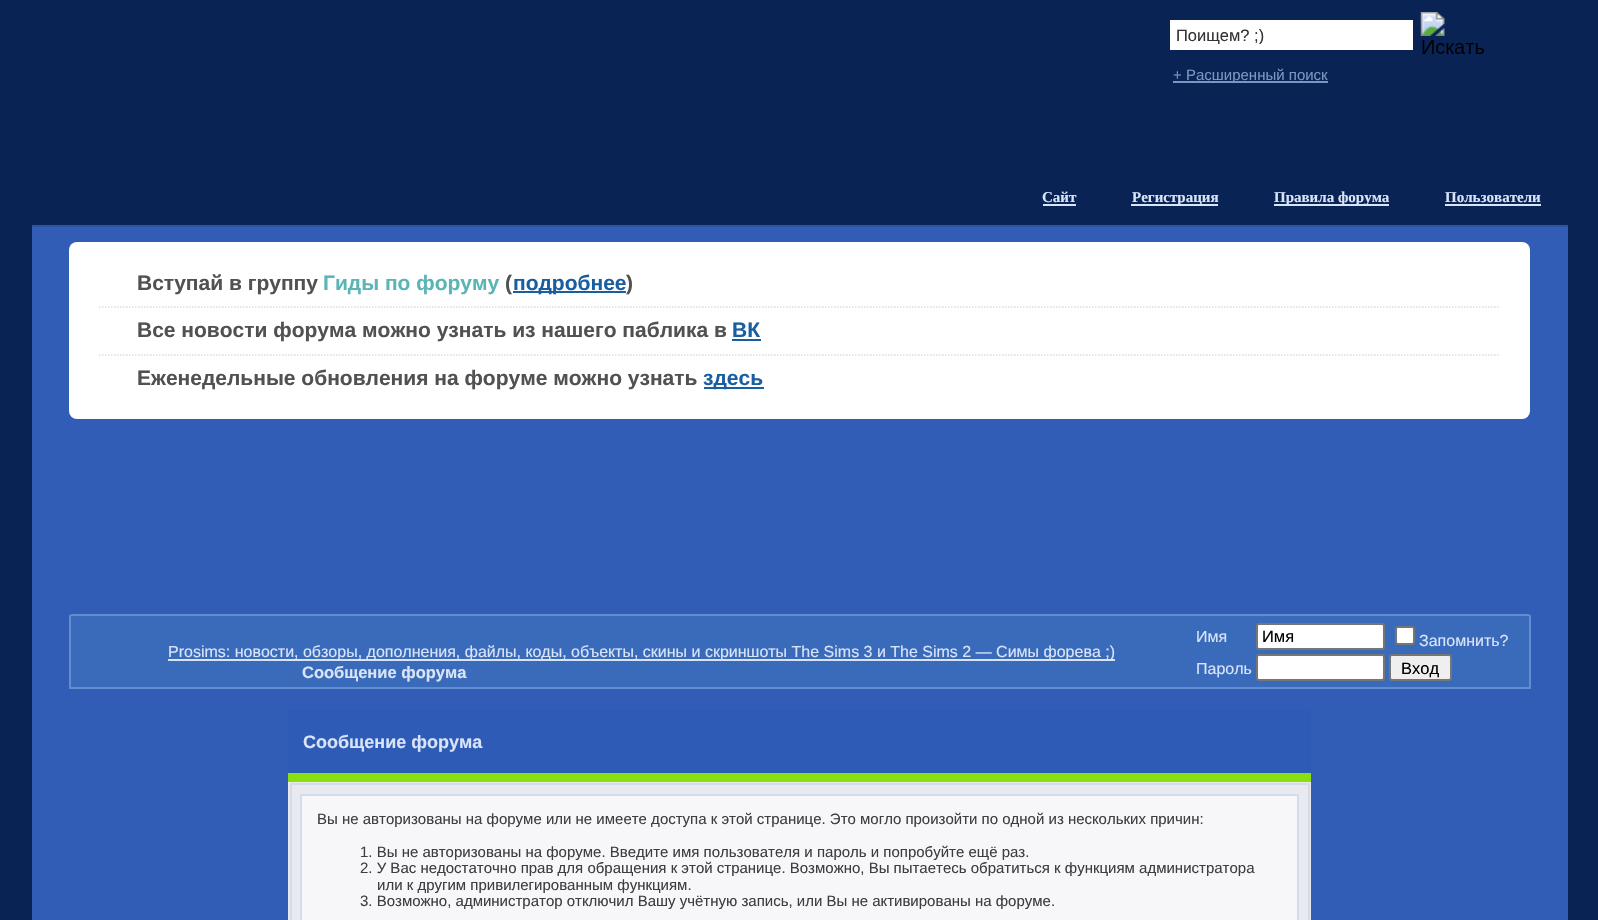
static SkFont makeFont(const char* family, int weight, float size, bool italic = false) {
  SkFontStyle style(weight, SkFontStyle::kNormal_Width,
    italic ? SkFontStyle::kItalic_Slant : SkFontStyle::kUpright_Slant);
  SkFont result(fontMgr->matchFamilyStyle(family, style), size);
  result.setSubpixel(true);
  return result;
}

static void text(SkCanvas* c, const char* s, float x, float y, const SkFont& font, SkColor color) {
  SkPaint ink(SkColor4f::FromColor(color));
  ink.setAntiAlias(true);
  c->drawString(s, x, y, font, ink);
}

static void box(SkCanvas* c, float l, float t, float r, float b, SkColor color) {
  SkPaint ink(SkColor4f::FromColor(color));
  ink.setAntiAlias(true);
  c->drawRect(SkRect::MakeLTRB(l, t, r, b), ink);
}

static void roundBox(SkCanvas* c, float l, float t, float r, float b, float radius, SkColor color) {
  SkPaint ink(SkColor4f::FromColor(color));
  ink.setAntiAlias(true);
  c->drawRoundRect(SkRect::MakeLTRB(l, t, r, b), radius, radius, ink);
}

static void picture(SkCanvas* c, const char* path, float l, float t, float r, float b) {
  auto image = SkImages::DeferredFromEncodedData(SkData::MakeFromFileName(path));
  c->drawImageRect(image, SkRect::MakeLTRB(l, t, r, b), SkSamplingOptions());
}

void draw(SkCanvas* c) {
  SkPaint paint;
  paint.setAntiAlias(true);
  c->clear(0xff092355);
  box(c, 1170, 20, 1413, 50, 0xffffffff);
  c->save();
  c->clipRect(SkRect::MakeLTRB(1176, 26, 1407, 44));
  SkFont face1 = makeFont("Liberation Sans", 400, 16.5f);
  text(c, "Поищем? ;)", 1176, 41, face1, 0xff333333);
  c->restore();
  picture(c, "img_01.png", 1420, 12, 1484, 54);
  box(c, 1173, 81, 1328, 83, 0xff7e95c1);
  SkFont face2 = makeFont("Liberation Sans", 400, 15);
  text(c, "+ Расширенный поиск", 1173, 80, face2, 0xff7e95c1);
  SkFont face3 = makeFont("Liberation Serif", 700, 15);
  text(c, "Сайт", 1042, 202, face3, 0xffd9e4f9);
  box(c, 1043, 204, 1076, 206, 0xffd9e4f9);
  box(c, 1131, 204, 1218, 206, 0xffd9e4f9);
  text(c, "Регистрация", 1132, 202, face3, 0xffd9e4f9);
  box(c, 1274, 204, 1389, 206, 0xffd9e4f9);
  text(c, "Правила форума", 1274, 202, face3, 0xffd9e4f9);
  text(c, "Пользователи", 1445, 202, face3, 0xffd9e4f9);
  box(c, 1445, 204, 1541, 206, 0xffd9e4f9);
  box(c, 32, 225, 1568, 227, 0xff2c54a4);
  box(c, 32, 227, 1568, 920, 0xff315db7);
  roundBox(c, 69, 242, 1530, 419, 8, 0xffffffff);
  paint.setStyle(SkPaint::kStroke_Style);
  paint.setStrokeWidth(1.5f);
  paint.setColor(0xffdadde7);
  paint.setPathEffect(SkDashPathEffect::Make({{1.5f, 1.5f}}, 0));
  c->drawPath(SkPathBuilder().moveTo(99, 307).lineTo(1500, 307).detach(), paint);
  paint.setPathEffect(nullptr);
  SkFont face4 = makeFont("Liberation Sans", 700, 21);
  text(c, "Вступай в группу", 137, 290, face4, 0xff515151);
  text(c, "Гиды по форуму", 323, 290, face4, 0xff5bb5b5);
  text(c, "(", 505, 290, face4, 0xff515151);
  box(c, 513, 291, 626, 293, 0xff1a5ea2);
  text(c, "подробнее", 513, 290, face4, 0xff1a5ea2);
  text(c, ")", 626, 290, face4, 0xff515151);
  paint.setPathEffect(SkDashPathEffect::Make({{1.5f, 1.5f}}, 0));
  c->drawPath(SkPathBuilder().moveTo(99, 355).lineTo(1500, 355).detach(), paint);
  paint.setPathEffect(nullptr);
  text(c, "Все новости форума можно узнать из нашего паблика в", 137, 337, face4, 0xff515151);
  text(c, "ВК", 732, 337, face4, 0xff1a5ea2);
  box(c, 732, 339, 761, 341, 0xff1a5ea2);
  text(c, "Еженедельные обновления на форуме можно узнать", 137, 385, face4, 0xff515151);
  box(c, 704, 387, 764, 389, 0xff1a5ea2);
  text(c, "здесь", 703, 385, face4, 0xff1a5ea2);
  box(c, 71, 614, 1529, 616, 0xff648cd0);
  box(c, 71, 616, 1529, 687, 0xff396bba);
  box(c, 69, 615, 71, 689, 0xff648cd0);
  box(c, 168, 659, 1115, 661, 0xffd9e4f9);
  SkFont face5 = makeFont("Liberation Sans", 400, 16);
  text(c, "Prosims: новости, обзоры, дополнения, файлы, коды, объекты, скины и скриншоты The Sims 3 и The Sims 2 — Симы форева ;)", 168, 657, face5, 0xffd9e4f9);
  SkFont face6 = makeFont("Liberation Sans", 700, 16.5f);
  text(c, "Сообщение форума", 302, 678, face6, 0xffd9e4f9);
  text(c, "Имя", 1196, 642, face5, 0xffd9e4f9);
  paint.setStyle(SkPaint::kFill_Style);
  paint.setColor(0xffffffff);
  c->drawRoundRect(SkRect::MakeLTRB(1257, 624, 1384, 649), 2, 2, paint);
  paint.setStyle(SkPaint::kStroke_Style);
  paint.setStrokeWidth(2);
  paint.setColor(0xff767676);
  c->drawRoundRect(SkRect::MakeLTRB(1257, 624, 1384, 649), 2, 2, paint);
  text(c, "Имя", 1262, 642, face1, 0xff000000);
  paint.setStyle(SkPaint::kFill_Style);
  paint.setColor(0xffffffff);
  c->drawRoundRect(SkRect::MakeLTRB(1396, 627, 1414, 644), 2, 2, paint);
  paint.setStyle(SkPaint::kStroke_Style);
  paint.setColor(0xff767676);
  c->drawRoundRect(SkRect::MakeLTRB(1396, 627, 1414, 644), 2, 2, paint);
  text(c, "Запомнить?", 1419, 646, face5, 0xffd9e4f9);
  text(c, "Пароль", 1196, 674, face5, 0xffd9e4f9);
  paint.setStyle(SkPaint::kFill_Style);
  paint.setColor(0xffffffff);
  c->drawRoundRect(SkRect::MakeLTRB(1257, 655, 1384, 680), 2, 2, paint);
  paint.setStyle(SkPaint::kStroke_Style);
  paint.setColor(0xff767676);
  c->drawRoundRect(SkRect::MakeLTRB(1257, 655, 1384, 680), 2, 2, paint);
  paint.setStyle(SkPaint::kFill_Style);
  paint.setColor(0xffefefef);
  c->drawRoundRect(SkRect::MakeLTRB(1390, 655, 1451, 680), 2, 2, paint);
  paint.setStyle(SkPaint::kStroke_Style);
  paint.setColor(0xff767676);
  c->drawRoundRect(SkRect::MakeLTRB(1390, 655, 1451, 680), 2, 2, paint);
  text(c, "Вход", 1401, 674, face1, 0xff000000);
  box(c, 1529, 615, 1531, 689, 0xff648cd0);
  box(c, 71, 687, 1529, 689, 0xff648cd0);
  box(c, 288, 710, 1311, 773, 0xff2e5bb6);
  box(c, 288, 773, 1311, 782, 0xff89df10);
  SkFont face7 = makeFont("Liberation Sans", 700, 18);
  text(c, "Сообщение форума", 303, 748, face7, 0xffd9e4f9);
  box(c, 288, 782, 1311, 920, 0xffe9e9e9);
  paint.setStyle(SkPaint::kFill_Style);
  paint.setColor(0xffe9eaef);
  c->drawRect(SkRect::MakeLTRB(291, 784, 1309, 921), paint);
  paint.setStyle(SkPaint::kStroke_Style);
  paint.setColor(0xffd1dced);
  c->drawRect(SkRect::MakeLTRB(291, 784, 1309, 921), paint);
  paint.setStyle(SkPaint::kFill_Style);
  paint.setColor(0xfff7f7f9);
  c->drawRect(SkRect::MakeLTRB(301, 795, 1298, 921), paint);
  paint.setStyle(SkPaint::kStroke_Style);
  paint.setColor(0xffd1dced);
  c->drawRect(SkRect::MakeLTRB(301, 795, 1298, 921), paint);
  text(c, "Вы не авторизованы на форуме или не имеете доступа к этой странице. Это могло произойти по одной из нескольких причин:", 317, 824, face2, 0xff3e3e3e);
  text(c, "1. Вы не авторизованы на форуме. Введите имя пользователя и пароль и попробуйте ещё раз.", 360, 857, face2, 0xff3e3e3e);
  text(c, "2. У Вас недостаточно прав для обращения к этой странице. Возможно, Вы пытаетесь обратиться к функциям администратора", 360, 873, face2, 0xff3e3e3e);
  text(c, "или к другим привилегированным функциям.", 377, 890, face2, 0xff3e3e3e);
  text(c, "3. Возможно, администратор отключил Вашу учётную запись, или Вы не активированы на форуме.", 360, 906, face2, 0xff3e3e3e);
}
